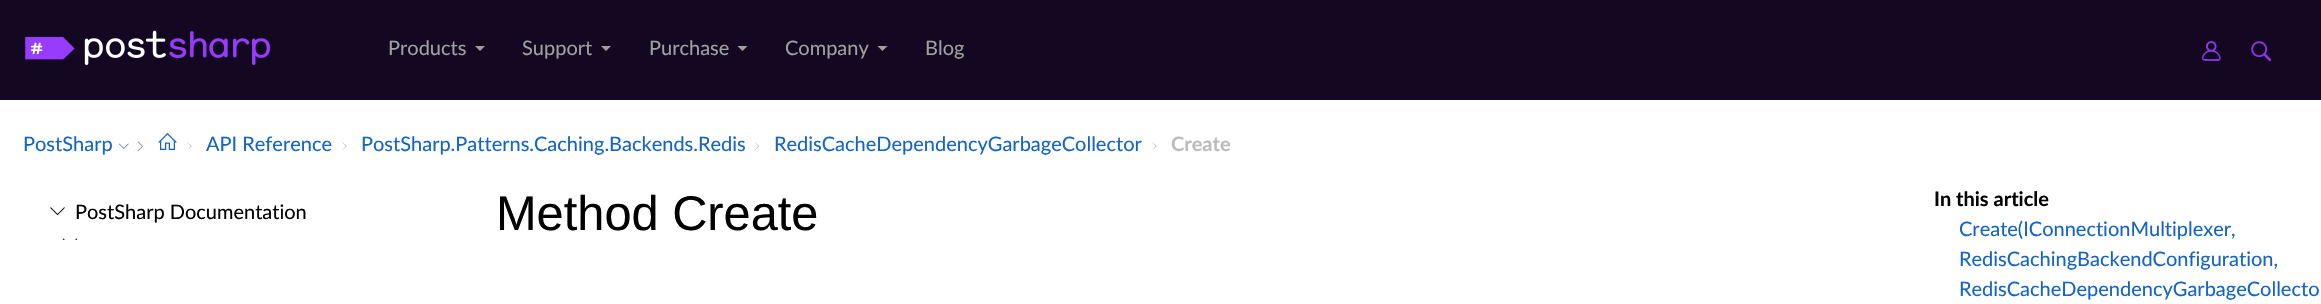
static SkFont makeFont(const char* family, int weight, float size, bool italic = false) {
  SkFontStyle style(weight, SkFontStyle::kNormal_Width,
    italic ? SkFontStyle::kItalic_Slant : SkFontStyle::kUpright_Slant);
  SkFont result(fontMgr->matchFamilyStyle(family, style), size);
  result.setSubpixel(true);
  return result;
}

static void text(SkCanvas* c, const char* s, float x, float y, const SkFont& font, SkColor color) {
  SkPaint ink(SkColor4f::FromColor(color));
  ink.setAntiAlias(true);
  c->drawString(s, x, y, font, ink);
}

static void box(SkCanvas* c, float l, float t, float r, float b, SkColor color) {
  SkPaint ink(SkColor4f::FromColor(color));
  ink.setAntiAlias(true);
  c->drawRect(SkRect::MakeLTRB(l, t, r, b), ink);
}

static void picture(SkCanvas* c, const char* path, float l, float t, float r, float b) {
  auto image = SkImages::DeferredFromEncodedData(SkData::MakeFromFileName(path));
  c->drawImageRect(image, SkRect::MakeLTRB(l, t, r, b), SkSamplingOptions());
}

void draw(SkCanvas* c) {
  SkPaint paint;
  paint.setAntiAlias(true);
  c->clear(0xffffffff);
  box(c, 0, 0, 2321, 100, 0xff130722);
  picture(c, "img_01.png", 25, 30, 270, 65);
  SkFont face1 = makeFont("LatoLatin", 400, 20);
  text(c, "Products", 388, 55, face1, 0xffa0a0a0);
  paint.setColor(0xffa0a0a0);
  c->drawPath(SkPathBuilder().moveTo(475, 46).lineTo(485, 46).lineTo(480, 51).close().detach(), paint);
  text(c, "Support", 522, 55, face1, 0xffa0a0a0);
  c->drawPath(SkPathBuilder().moveTo(601, 46).lineTo(611, 46).lineTo(606, 51).close().detach(), paint);
  text(c, "Purchase", 649, 55, face1, 0xffa0a0a0);
  c->drawPath(SkPathBuilder().moveTo(737.5f, 46).lineTo(747.5f, 46).lineTo(742.5f, 51).close().detach(), paint);
  text(c, "Company", 785, 55, face1, 0xffa0a0a0);
  c->drawPath(SkPathBuilder().moveTo(877.5f, 46).lineTo(887.5f, 46).lineTo(882.5f, 51).close().detach(), paint);
  text(c, "Blog", 925, 55, face1, 0xffa0a0a0);
  picture(c, "img_02.png", 2201, 41, 2221, 61);
  picture(c, "img_03.png", 2251, 41, 2271, 61);
  text(c, "PostSharp", 23, 151, face1, 0xff1364c4);
  picture(c, "img_04.png", 119, 143, 129, 149);
  picture(c, "img_05.png", 137, 141, 143, 152);
  picture(c, "img_06.png", 158, 133, 177, 150);
  paint.setColor(0xff696969);
  c->drawPath(SkPathBuilder().moveTo(186.5f, 151).lineTo(191, 146).lineTo(186.5f, 141.5f).lineTo(191.5f, 146).close().detach(), paint);
  text(c, "API Reference", 206, 151, face1, 0xff1364c4);
  c->drawPath(SkPathBuilder().moveTo(341.5f, 151).lineTo(346, 146).lineTo(341.5f, 141.5f).lineTo(346.5f, 146).close().detach(), paint);
  text(c, "PostSharp.Patterns.Caching.Backends.Redis", 361, 151, face1, 0xff1364c4);
  c->drawPath(SkPathBuilder().moveTo(754, 151).lineTo(758.5f, 146).lineTo(754, 141.5f).lineTo(759, 146).close().detach(), paint);
  text(c, "RedisCacheDependencyGarbageCollector", 774, 151, face1, 0xff1364c4);
  c->drawPath(SkPathBuilder().moveTo(1151.5f, 151).lineTo(1156, 146).lineTo(1151.5f, 141.5f).lineTo(1156.5f, 146).close().detach(), paint);
  SkFont face2 = makeFont("LatoLatin", 700, 20);
  text(c, "Create", 1171, 151, face2, 0xffbbbbbb);
  picture(c, "img_07.png", 50, 207, 65, 216);
  text(c, "PostSharp Documentation", 75, 219, face1, 0xff000000);
  picture(c, "img_08.png", 62, 238, 78, 240);
  SkFont face3 = makeFont("Liberation Sans", 400, 48.75f);
  text(c, "Method Create", 496, 230, face3, 0xff000000);
  text(c, "In this article", 1934, 206, face2, 0xff000000);
  text(c, "Create(IConnectionMultiplexer,", 1959, 236, face1, 0xff1364c4);
  text(c, "RedisCachingBackendConfiguration,", 1959, 266, face1, 0xff1364c4);
  text(c, "RedisCacheDependencyGarbageCollecto", 1959, 296, face1, 0xff1364c4);
}
